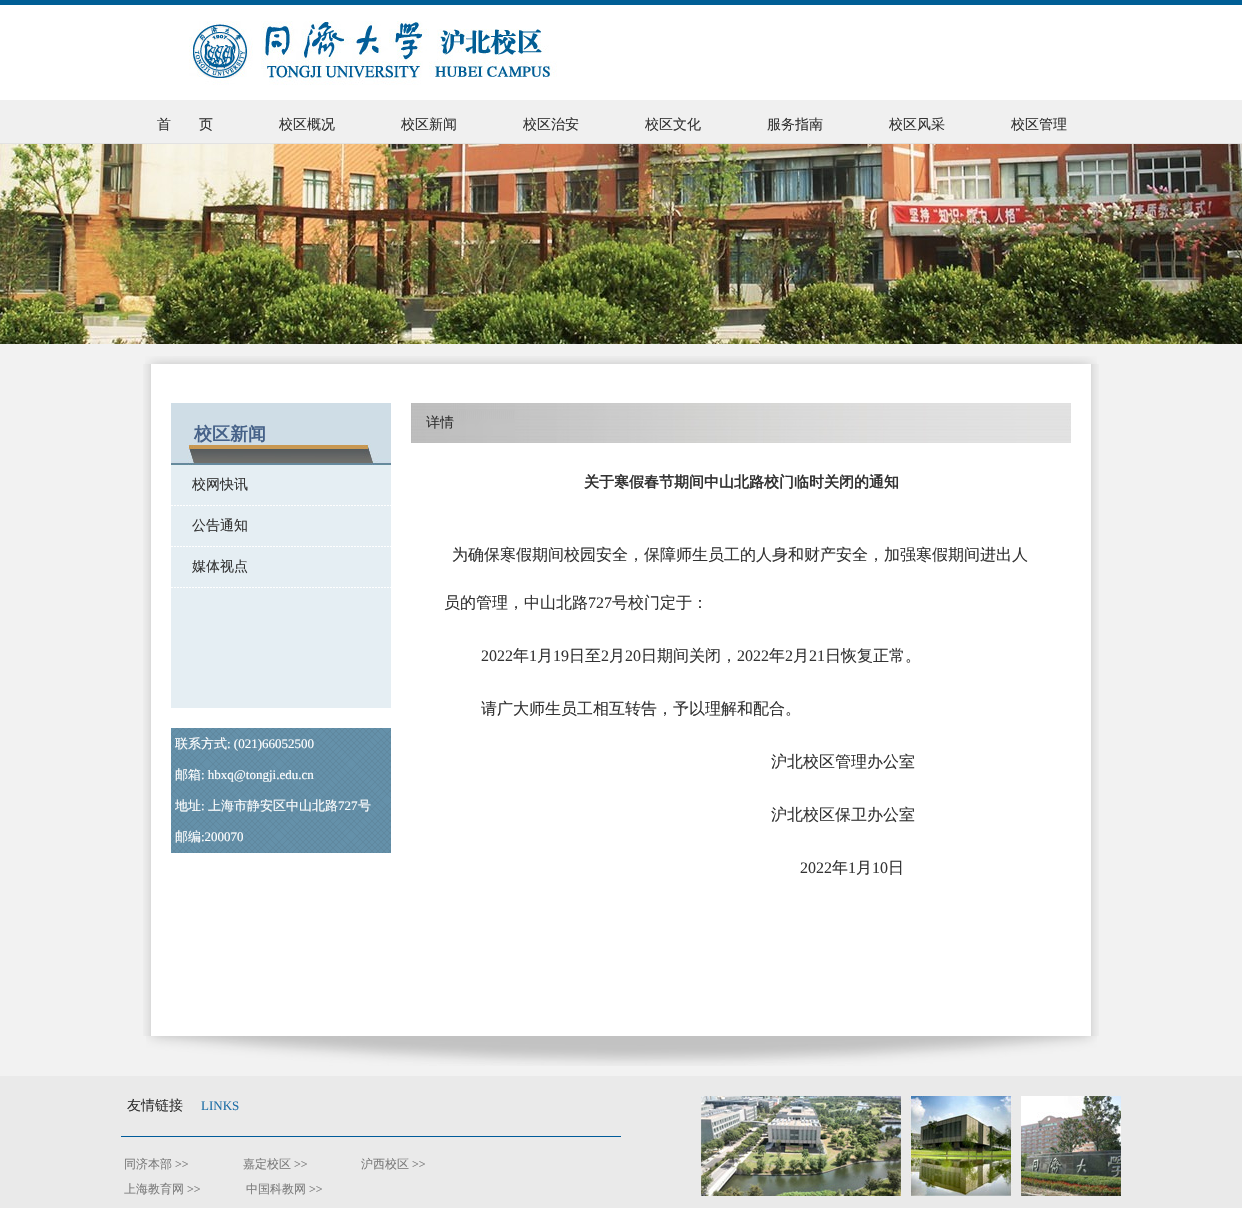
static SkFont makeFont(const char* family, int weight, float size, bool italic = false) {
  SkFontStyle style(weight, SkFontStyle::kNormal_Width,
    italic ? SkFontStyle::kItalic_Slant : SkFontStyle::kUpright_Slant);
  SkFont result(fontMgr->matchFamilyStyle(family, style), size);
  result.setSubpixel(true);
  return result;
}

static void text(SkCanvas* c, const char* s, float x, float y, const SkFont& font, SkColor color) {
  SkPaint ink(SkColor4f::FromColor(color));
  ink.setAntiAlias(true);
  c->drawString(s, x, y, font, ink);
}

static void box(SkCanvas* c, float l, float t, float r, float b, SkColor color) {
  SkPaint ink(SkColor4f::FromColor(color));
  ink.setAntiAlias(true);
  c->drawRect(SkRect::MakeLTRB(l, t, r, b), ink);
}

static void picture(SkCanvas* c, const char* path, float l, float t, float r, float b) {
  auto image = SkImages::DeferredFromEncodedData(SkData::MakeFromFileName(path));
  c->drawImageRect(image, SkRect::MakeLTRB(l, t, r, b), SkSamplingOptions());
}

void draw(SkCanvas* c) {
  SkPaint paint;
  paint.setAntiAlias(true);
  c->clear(0xffffffff);
  box(c, 0, 0, 1242, 5, 0xff005e95);
  picture(c, "img_01.png", 189, 21, 557, 85);
  box(c, 0, 100, 1242, 143, 0xfff0f0f0);
  SkFont face1 = makeFont("WenQuanYi Zen Hei", 500, 14);
  text(c, "首　　页", 157, 129, face1, 0xff333333);
  text(c, "校区概况", 279, 129, face1, 0xff333333);
  text(c, "校区新闻", 401, 129, face1, 0xff333333);
  text(c, "校区治安", 523, 129, face1, 0xff333333);
  text(c, "校区文化", 645, 129, face1, 0xff333333);
  text(c, "服务指南", 767, 129, face1, 0xff333333);
  text(c, "校区风采", 889, 129, face1, 0xff333333);
  text(c, "校区管理", 1011, 129, face1, 0xff333333);
  box(c, 0, 143, 1242, 144, 0xffe2e2e2);
  picture(c, "img_02.png", 0, 144, 1242, 344);
  box(c, 0, 344, 1242, 1076, 0xfff2f2f2);
  picture(c, "img_03.png", 145, 356, 1097, 364);
  picture(c, "img_04.png", 143, 364, 1099, 1036);
  box(c, 171, 465, 391, 708, 0xffe5eef3);
  picture(c, "img_05.png", 171, 403, 391, 465);
  SkFont face2 = makeFont("WenQuanYi Zen Hei", 700, 18);
  text(c, "校区新闻", 194, 440, face2, 0xff456188);
  text(c, "校网快讯", 192, 489, face1, 0xff333333);
  picture(c, "img_06.png", 171, 505, 391, 506);
  text(c, "公告通知", 192, 530, face1, 0xff333333);
  picture(c, "img_06.png", 171, 546, 391, 547);
  text(c, "媒体视点", 192, 571, face1, 0xff333333);
  picture(c, "img_06.png", 171, 587, 391, 588);
  box(c, 171, 728, 391, 853, 0xff6b9ab4);
  picture(c, "img_07.png", 171, 728, 391, 853);
  SkFont face3 = makeFont("WenQuanYi Zen Hei", 500, 13);
  text(c, "联系方式", 175, 748, face3, 0xffffffff);
  SkFont face4 = makeFont("Liberation Serif", 400, 13);
  text(c, ": (021)66052500", 227, 748, face4, 0xffffffff);
  text(c, "邮箱", 175, 779, face3, 0xffffffff);
  text(c, ": hbxq@tongji.edu.cn", 201, 779, face4, 0xffffffff);
  text(c, "地址", 175, 810, face3, 0xffffffff);
  text(c, ":", 201, 810, face4, 0xffffffff);
  text(c, "上海市静安区中山北路", 208, 810, face3, 0xffffffff);
  text(c, "727", 338, 810, face4, 0xffffffff);
  text(c, "号", 358, 810, face3, 0xffffffff);
  text(c, "邮编", 175, 841, face3, 0xffffffff);
  text(c, ":200070", 201, 841, face4, 0xffffffff);
  picture(c, "img_08.png", 411, 403, 1071, 443);
  text(c, "详情", 426, 427, face1, 0xff333333);
  SkFont face5 = makeFont("WenQuanYi Zen Hei", 700, 15);
  text(c, "关于寒假春节期间中山北路校门临时关闭的通知", 584, 487, face5, 0xff333333);
  SkFont face6 = makeFont("WenQuanYi Zen Hei", 500, 16);
  text(c, "为确保寒假期间校园安全，保障师生员工的人身和财产安全，加强寒假期间进出人", 452, 560, face6, 0xff333333);
  text(c, "员的管理，中山北路", 444, 608, face6, 0xff333333);
  SkFont face7 = makeFont("Liberation Serif", 400, 16);
  text(c, "727", 588, 608, face7, 0xff333333);
  text(c, "号校门定于：", 612, 608, face6, 0xff333333);
  text(c, "2022", 481, 661, face7, 0xff333333);
  text(c, "年", 513, 661, face6, 0xff333333);
  text(c, "1", 529, 661, face7, 0xff333333);
  text(c, "月", 537, 661, face6, 0xff333333);
  text(c, "19", 553, 661, face7, 0xff333333);
  text(c, "日至", 569, 661, face6, 0xff333333);
  text(c, "2", 601, 661, face7, 0xff333333);
  text(c, "月", 609, 661, face6, 0xff333333);
  text(c, "20", 625, 661, face7, 0xff333333);
  text(c, "日期间关闭，", 641, 661, face6, 0xff333333);
  text(c, "2022", 737, 661, face7, 0xff333333);
  text(c, "年", 769, 661, face6, 0xff333333);
  text(c, "2", 785, 661, face7, 0xff333333);
  text(c, "月", 793, 661, face6, 0xff333333);
  text(c, "21", 809, 661, face7, 0xff333333);
  text(c, "日恢复正常。", 825, 661, face6, 0xff333333);
  text(c, "请广大师生员工相互转告，予以理解和配合。", 481, 714, face6, 0xff333333);
  text(c, "沪北校区管理办公室", 771, 767, face6, 0xff333333);
  text(c, "沪北校区保卫办公室", 771, 820, face6, 0xff333333);
  text(c, "2022", 800, 873, face7, 0xff333333);
  text(c, "年", 832, 873, face6, 0xff333333);
  text(c, "1", 848, 873, face7, 0xff333333);
  text(c, "月", 856, 873, face6, 0xff333333);
  text(c, "10", 872, 873, face7, 0xff333333);
  text(c, "日", 888, 873, face6, 0xff333333);
  picture(c, "img_09.png", 146, 1036, 1097, 1066);
  box(c, 0, 1076, 1242, 1208, 0xffeaeaea);
  text(c, "友情链接", 127, 1110, face1, 0xff333333);
  text(c, "LINKS", 201, 1110, face4, 0xff2070a7);
  box(c, 121, 1136, 621, 1137, 0xff005b9a);
  SkFont face8 = makeFont("WenQuanYi Zen Hei", 500, 12);
  text(c, "同济本部", 124, 1168, face8, 0xff7c7c7c);
  SkFont face9 = makeFont("Liberation Serif", 400, 12);
  text(c, ">>", 175, 1168, face9, 0xff7c7c7c);
  text(c, "嘉定校区", 243, 1168, face8, 0xff7c7c7c);
  text(c, ">>", 294, 1168, face9, 0xff7c7c7c);
  text(c, "沪西校区", 361, 1168, face8, 0xff7c7c7c);
  text(c, ">>", 412, 1168, face9, 0xff7c7c7c);
  text(c, "上海教育网", 124, 1193, face8, 0xff7c7c7c);
  text(c, ">>", 187, 1193, face9, 0xff7c7c7c);
  text(c, "中国科教网", 246, 1193, face8, 0xff7c7c7c);
  text(c, ">>", 309, 1193, face9, 0xff7c7c7c);
  picture(c, "img_10.png", 701, 1096, 1121, 1196);
}
